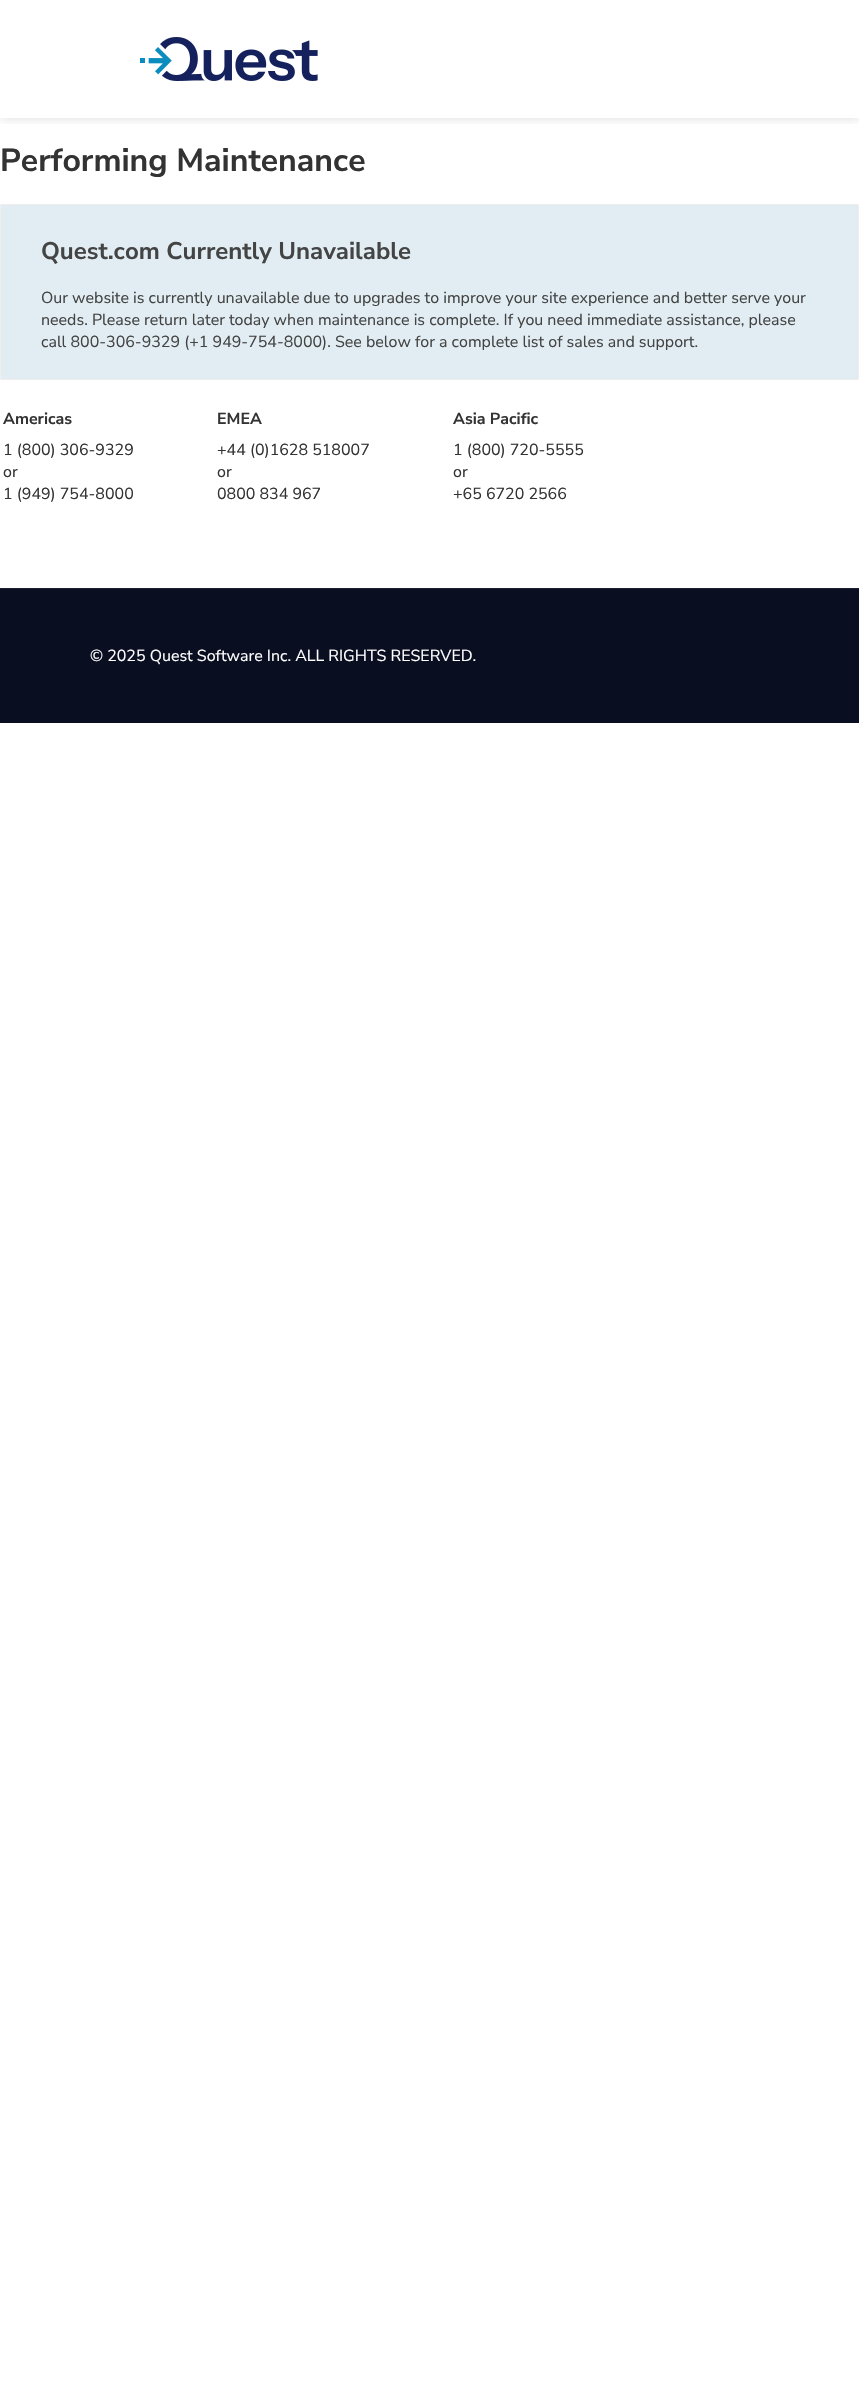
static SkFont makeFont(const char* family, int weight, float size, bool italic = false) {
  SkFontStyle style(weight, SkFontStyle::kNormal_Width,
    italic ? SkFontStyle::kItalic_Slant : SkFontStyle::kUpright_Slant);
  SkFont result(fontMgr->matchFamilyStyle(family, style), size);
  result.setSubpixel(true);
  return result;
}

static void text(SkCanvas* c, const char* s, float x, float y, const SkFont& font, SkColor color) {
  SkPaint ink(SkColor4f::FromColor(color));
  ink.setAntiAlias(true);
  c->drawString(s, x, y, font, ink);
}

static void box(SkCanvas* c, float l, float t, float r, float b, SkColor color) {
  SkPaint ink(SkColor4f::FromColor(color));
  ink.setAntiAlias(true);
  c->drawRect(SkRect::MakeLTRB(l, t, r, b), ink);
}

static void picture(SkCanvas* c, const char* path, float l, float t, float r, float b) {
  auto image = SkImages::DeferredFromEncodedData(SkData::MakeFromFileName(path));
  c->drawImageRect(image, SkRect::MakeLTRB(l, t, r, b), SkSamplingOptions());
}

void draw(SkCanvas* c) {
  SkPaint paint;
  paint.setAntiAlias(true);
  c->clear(0xffffffff);
  c->save();
  c->clipRect(SkRect::MakeLTRB(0, 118, 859, 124));
  paint.setColor(0x29000000);
  paint.setMaskFilter(SkMaskFilter::MakeBlur(kNormal_SkBlurStyle, 6));
  c->drawRect(SkRect::MakeLTRB(1, -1, 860, 117), paint);
  paint.setMaskFilter(nullptr);
  c->restore();
  picture(c, "img_01.png", 140, 37, 318, 81);
  SkFont face1 = makeFont("Nunito Sans", 700, 32);
  text(c, "Performing Maintenance", 0, 171, face1, 0xff333333);
  paint.setColor(0xffe1edf2);
  c->drawRoundRect(SkRect::MakeLTRB(0.5f, 204.5f, 858.5f, 379.5f), 0.5f, 0.5f, paint);
  paint.setStyle(SkPaint::kStroke_Style);
  paint.setStrokeWidth(1);
  paint.setColor(0xffeeeeee);
  c->drawRoundRect(SkRect::MakeLTRB(0.5f, 204.5f, 858.5f, 379.5f), 0.5f, 0.5f, paint);
  SkFont face2 = makeFont("Nunito Sans", 700, 24);
  text(c, "Quest.com Currently Unavailable", 41, 259, face2, 0xff444444);
  SkFont face3 = makeFont("Nunito Sans", 400, 16);
  text(c, "Our website is currently unavailable due to upgrades to improve your site experience and better serve your", 41, 303, face3, 0xff444444);
  text(c, "needs. Please return later today when maintenance is complete. If you need immediate assistance, please", 41, 325, face3, 0xff444444);
  text(c, "call 800-306-9329 (+1 949-754-8000). See below for a complete list of sales and support.", 41, 347, face3, 0xff444444);
  SkFont face4 = makeFont("Nunito Sans", 700, 16);
  text(c, "Americas", 3, 424, face4, 0xff333333);
  text(c, "EMEA", 217, 424, face4, 0xff333333);
  text(c, "Asia Pacific", 453, 424, face4, 0xff333333);
  text(c, "1 (800) 306-9329", 3, 455, face3, 0xff333333);
  text(c, "or", 3, 477, face3, 0xff333333);
  text(c, "1 (949) 754-8000", 3, 499, face3, 0xff333333);
  text(c, "+44 (0)1628 518007", 217, 455, face3, 0xff333333);
  text(c, "or", 217, 477, face3, 0xff333333);
  text(c, "0800 834 967", 217, 499, face3, 0xff333333);
  text(c, "1 (800) 720-5555", 453, 455, face3, 0xff333333);
  text(c, "or", 453, 477, face3, 0xff333333);
  text(c, "+65 6720 2566", 453, 499, face3, 0xff333333);
  box(c, 0, 589, 859, 723, 0xff0a0e21);
  box(c, 0, 588, 859, 589, 0xff1a1f35);
  text(c, "© 2025 Quest Software Inc. ALL RIGHTS RESERVED.", 90, 661, face3, 0xffffffff);
}
